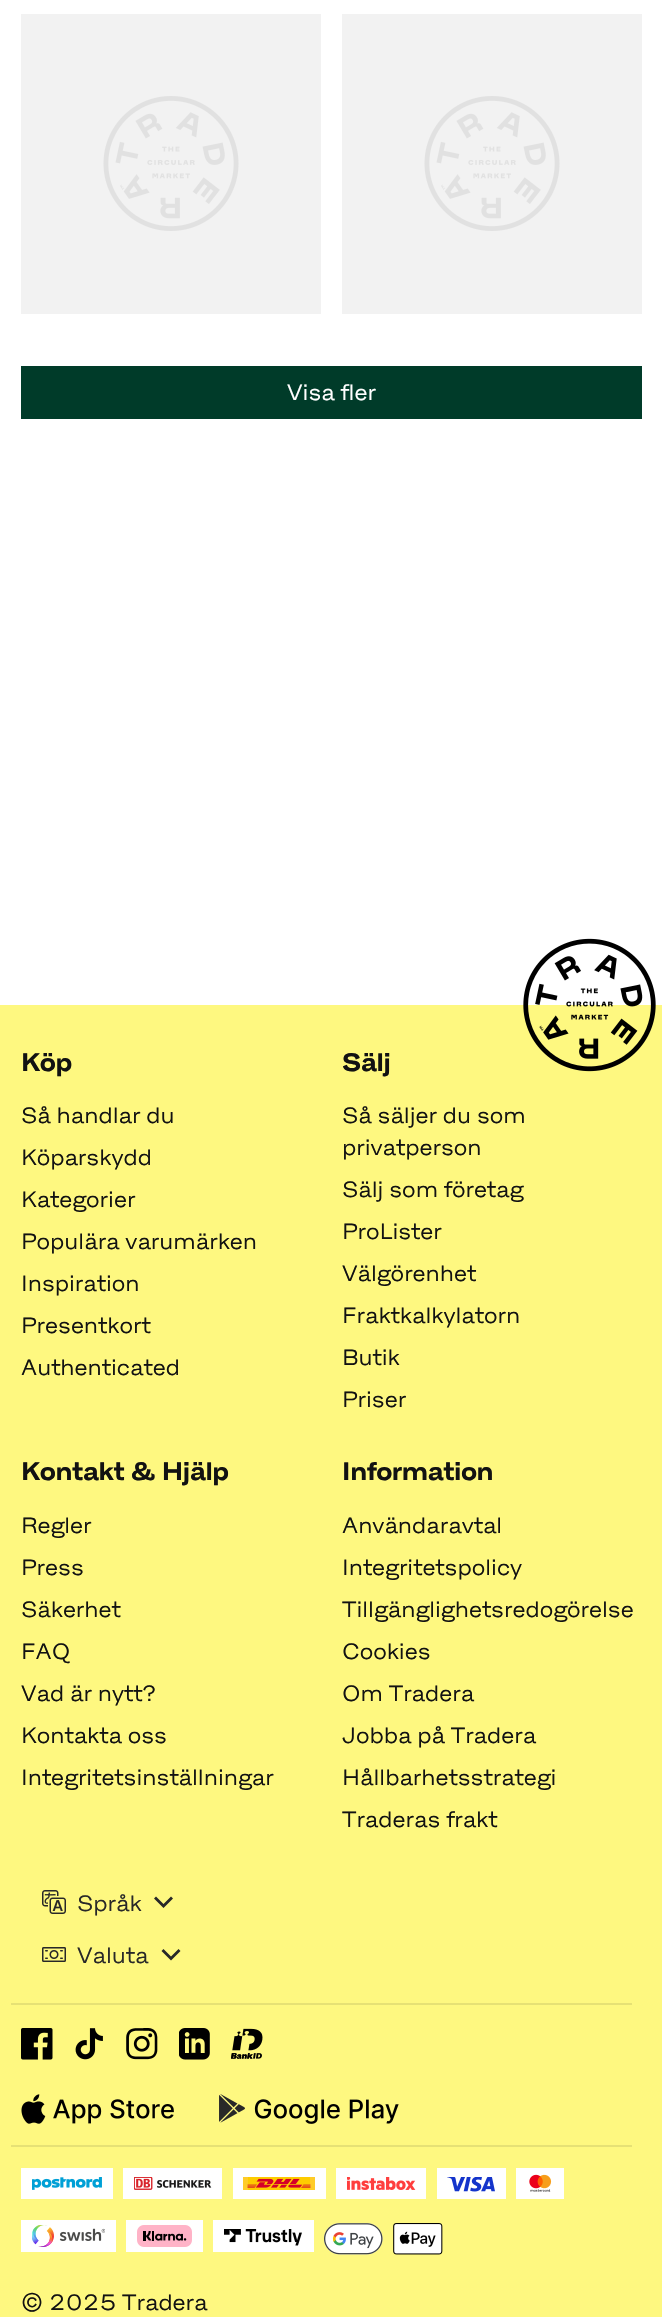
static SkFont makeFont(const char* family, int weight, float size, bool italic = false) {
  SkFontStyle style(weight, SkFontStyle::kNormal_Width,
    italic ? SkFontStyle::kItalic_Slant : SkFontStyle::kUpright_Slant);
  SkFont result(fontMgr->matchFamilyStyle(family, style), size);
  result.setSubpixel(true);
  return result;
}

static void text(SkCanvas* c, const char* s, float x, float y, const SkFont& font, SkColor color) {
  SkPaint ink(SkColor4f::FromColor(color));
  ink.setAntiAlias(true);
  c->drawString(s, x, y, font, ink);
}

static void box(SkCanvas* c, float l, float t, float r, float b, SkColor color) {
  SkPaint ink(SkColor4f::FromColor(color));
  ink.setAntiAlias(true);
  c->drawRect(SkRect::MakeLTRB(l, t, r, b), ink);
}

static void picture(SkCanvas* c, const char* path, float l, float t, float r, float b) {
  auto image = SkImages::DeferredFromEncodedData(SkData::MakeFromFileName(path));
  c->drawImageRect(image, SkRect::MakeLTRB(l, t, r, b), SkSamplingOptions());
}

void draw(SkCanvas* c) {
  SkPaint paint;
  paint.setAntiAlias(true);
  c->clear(0xffffffff);
  box(c, 21, 14, 321, 314, 0xfff2f2f2);
  picture(c, "img_01.png", 103, 96, 239, 231);
  box(c, 342, 14, 642, 314, 0xfff2f2f2);
  picture(c, "img_01.png", 424, 96, 560, 231);
  box(c, 21, 366, 642, 419, 0xff003b29);
  SkFont face1 = makeFont("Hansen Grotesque", 400, 21);
  text(c, "Visa fler", 287, 400, face1, 0xffffffff);
  box(c, 0, 1005, 662, 2317, 0xfffef880);
  picture(c, "img_02.png", 523, 938, 656, 1072);
  SkFont face2 = makeFont("Hansen Grotesque", 700, 24);
  text(c, "Köp", 21, 1071, face2, 0xff121212);
  text(c, "Så handlar du", 21, 1123, face1, 0xff121212);
  text(c, "Köparskydd", 21, 1165, face1, 0xff121212);
  text(c, "Kategorier", 21, 1207, face1, 0xff121212);
  text(c, "Populära varumärken", 21, 1249, face1, 0xff121212);
  text(c, "Inspiration", 21, 1291, face1, 0xff121212);
  text(c, "Presentkort", 21, 1333, face1, 0xff121212);
  text(c, "Authenticated", 21, 1375, face1, 0xff121212);
  text(c, "Sälj", 342, 1071, face2, 0xff121212);
  text(c, "Så säljer du som", 342, 1123, face1, 0xff121212);
  text(c, "privatperson", 342, 1155, face1, 0xff121212);
  text(c, "Sälj som företag", 342, 1197, face1, 0xff121212);
  text(c, "ProLister", 342, 1239, face1, 0xff121212);
  text(c, "Välgörenhet", 342, 1281, face1, 0xff121212);
  text(c, "Fraktkalkylatorn", 342, 1323, face1, 0xff121212);
  text(c, "Butik", 342, 1365, face1, 0xff121212);
  text(c, "Priser", 342, 1407, face1, 0xff121212);
  text(c, "Kontakt & Hjälp", 21, 1480, face2, 0xff121212);
  text(c, "Regler", 21, 1533, face1, 0xff121212);
  text(c, "Press", 21, 1575, face1, 0xff121212);
  text(c, "Säkerhet", 21, 1617, face1, 0xff121212);
  text(c, "FAQ", 21, 1659, face1, 0xff121212);
  text(c, "Vad är nytt?", 21, 1701, face1, 0xff121212);
  text(c, "Kontakta oss", 21, 1743, face1, 0xff121212);
  text(c, "Integritetsinställningar", 21, 1785, face1, 0xff121212);
  text(c, "Information", 342, 1480, face2, 0xff121212);
  text(c, "Användaravtal", 342, 1533, face1, 0xff121212);
  text(c, "Integritetspolicy", 342, 1575, face1, 0xff121212);
  text(c, "Tillgänglighetsredogörelse", 342, 1617, face1, 0xff121212);
  text(c, "Cookies", 342, 1659, face1, 0xff121212);
  text(c, "Om Tradera", 342, 1701, face1, 0xff121212);
  text(c, "Jobba på Tradera", 342, 1743, face1, 0xff121212);
  text(c, "Hållbarhetsstrategi", 342, 1785, face1, 0xff121212);
  text(c, "Traderas frakt", 342, 1827, face1, 0xff121212);
  picture(c, "img_03.png", 42, 1890, 66, 1914);
  text(c, "Språk", 77, 1911, face1, 0xff282828);
  paint.setColor(0xff282828);
  c->drawPath(SkPathBuilder().moveTo(163.5f, 1904).lineTo(171, 1896.5f).lineTo(173, 1898.5f).lineTo(163.5f, 1908).lineTo(154, 1898.5f).lineTo(156, 1896.5f).close().detach(), paint);
  picture(c, "img_04.png", 42, 1947, 66, 1962);
  text(c, "Valuta", 77, 1963, face1, 0xff282828);
  c->drawPath(SkPathBuilder().moveTo(171, 1956.5f).lineTo(178.5f, 1949).lineTo(180.5f, 1951).lineTo(171, 1960.5f).lineTo(161.5f, 1951).lineTo(163.5f, 1949).close().detach(), paint);
  box(c, 11, 2003, 632, 2005, 0xffe6e175);
  box(c, 11, 2145, 632, 2147, 0xffe6e175);
  picture(c, "img_05.png", 21, 2028, 53, 2060);
  picture(c, "img_06.png", 75, 2028, 103, 2060);
  picture(c, "img_07.png", 126, 2028, 158, 2060);
  picture(c, "img_08.png", 179, 2028, 210, 2060);
  picture(c, "img_09.png", 231, 2028, 263, 2059);
  picture(c, "img_10.png", 21, 2094, 174, 2124);
  picture(c, "img_11.png", 219, 2094, 399, 2124);
  box(c, 21, 2168, 113, 2199, 0xffffffff);
  picture(c, "img_12.png", 32, 2177, 102, 2190);
  box(c, 123, 2168, 222, 2199, 0xffffffff);
  picture(c, "img_13.png", 134, 2177, 212, 2190);
  box(c, 233, 2168, 326, 2199, 0xffffffff);
  picture(c, "img_14.png", 243, 2177, 315, 2190);
  box(c, 336, 2168, 426, 2199, 0xffffffff);
  picture(c, "img_15.png", 347, 2177, 416, 2190);
  box(c, 437, 2168, 506, 2199, 0xffffffff);
  picture(c, "img_16.png", 447, 2177, 495, 2192);
  box(c, 516, 2168, 564, 2199, 0xffffffff);
  picture(c, "img_17.png", 529, 2174, 552, 2192);
  box(c, 21, 2220, 116, 2252, 0xffffffff);
  picture(c, "img_18.png", 32, 2225, 105, 2247);
  box(c, 126, 2220, 203, 2252, 0xffffffff);
  picture(c, "img_19.png", 137, 2225, 192, 2247);
  box(c, 213, 2220, 314, 2252, 0xffffffff);
  picture(c, "img_20.png", 224, 2229, 302, 2246);
  picture(c, "img_21.png", 324, 2223, 383, 2255);
  picture(c, "img_22.png", 393, 2223, 443, 2255);
  text(c, "© 2025 Tradera", 21, 2310, face1, 0xff121212);
}
